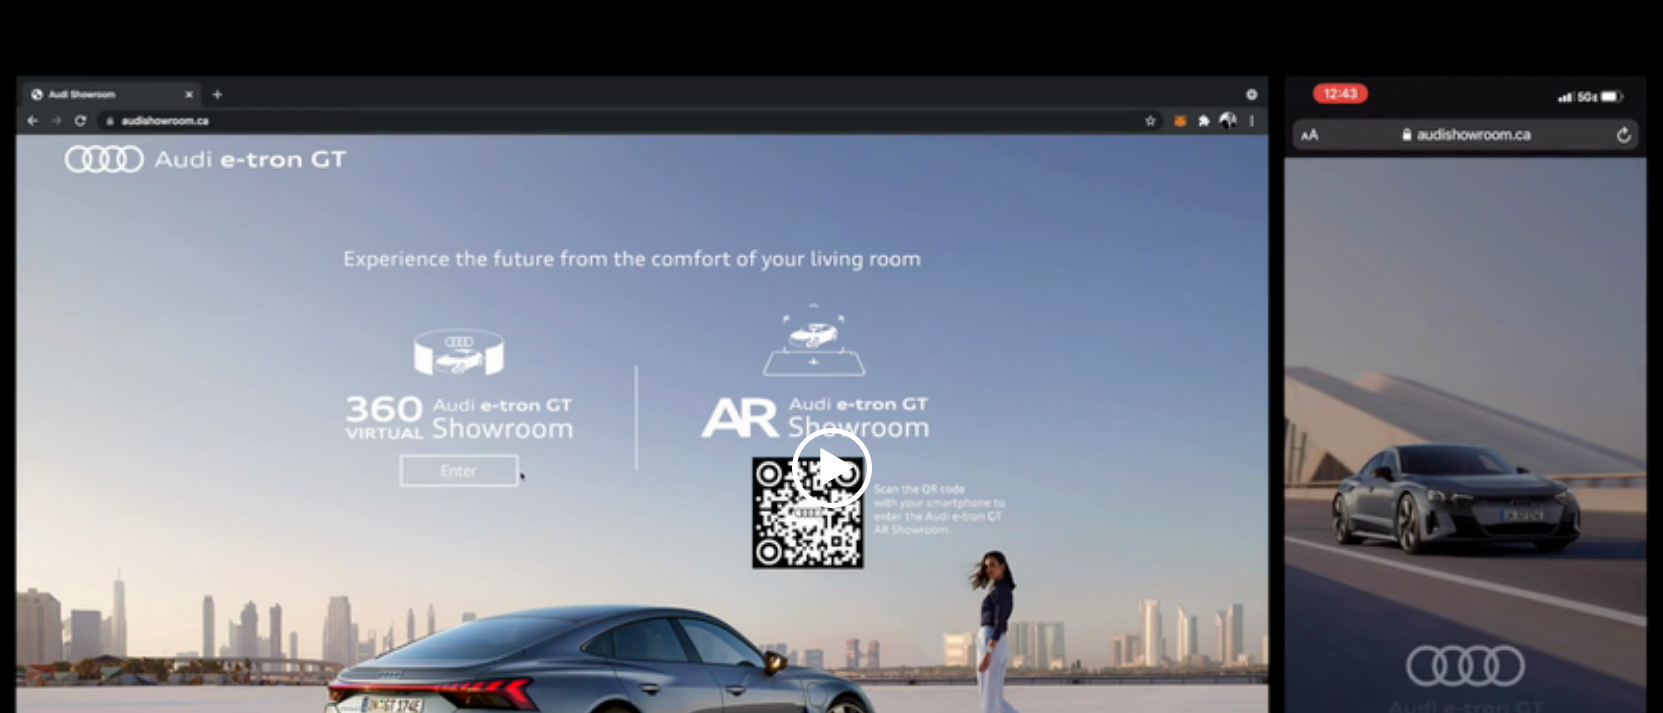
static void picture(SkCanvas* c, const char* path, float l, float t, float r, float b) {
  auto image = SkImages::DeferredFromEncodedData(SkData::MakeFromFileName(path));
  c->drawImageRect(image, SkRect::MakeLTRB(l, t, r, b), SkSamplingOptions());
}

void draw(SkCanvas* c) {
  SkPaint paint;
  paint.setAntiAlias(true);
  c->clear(0xff000000);
  picture(c, "img_01.png", 14, 74, 1649, 713);
  picture(c, "img_02.png", 792, 428, 872, 508);
}
